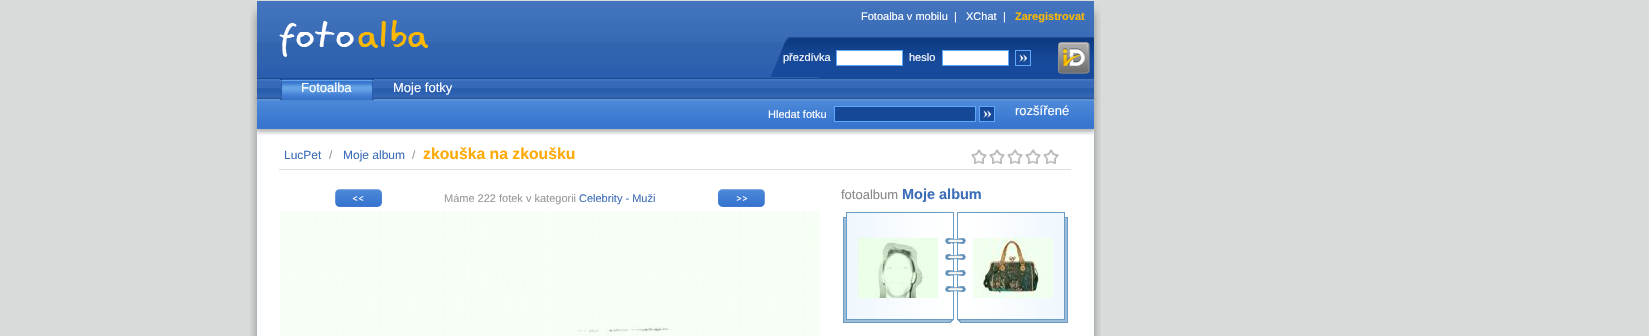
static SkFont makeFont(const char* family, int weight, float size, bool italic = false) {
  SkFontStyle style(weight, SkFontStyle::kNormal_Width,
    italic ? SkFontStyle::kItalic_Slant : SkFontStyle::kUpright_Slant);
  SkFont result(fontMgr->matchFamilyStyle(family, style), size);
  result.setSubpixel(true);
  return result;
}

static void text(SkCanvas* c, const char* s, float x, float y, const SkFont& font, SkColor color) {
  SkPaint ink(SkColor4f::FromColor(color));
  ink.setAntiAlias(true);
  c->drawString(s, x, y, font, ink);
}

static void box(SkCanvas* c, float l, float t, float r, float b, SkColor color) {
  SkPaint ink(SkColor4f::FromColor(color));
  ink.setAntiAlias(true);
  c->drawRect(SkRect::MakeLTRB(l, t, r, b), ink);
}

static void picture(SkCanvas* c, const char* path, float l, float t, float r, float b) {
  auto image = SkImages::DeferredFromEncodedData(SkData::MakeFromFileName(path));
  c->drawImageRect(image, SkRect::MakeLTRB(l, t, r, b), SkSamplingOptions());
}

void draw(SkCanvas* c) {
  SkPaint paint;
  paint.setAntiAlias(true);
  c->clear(0xffd9dbdb);
  picture(c, "img_01.png", 250, 1, 1101, 77);
  SkFont face1 = makeFont("Liberation Sans", 400, 11);
  text(c, "Fotoalba v mobilu", 861, 20, face1, 0xffffffff);
  text(c, "|", 954, 20, face1, 0xffffffff);
  text(c, "XChat", 966, 20, face1, 0xffffffff);
  text(c, "|", 1003, 20, face1, 0xffffffff);
  SkFont face2 = makeFont("Liberation Sans", 700, 11);
  text(c, "Zaregistrovat", 1015, 20, face2, 0xfffdb801);
  text(c, "přezdívka", 783, 61, face1, 0xffffffff);
  paint.setColor(0xffffffff);
  c->drawRect(SkRect::MakeLTRB(836.5f, 50.5f, 902.5f, 65.5f), paint);
  paint.setStyle(SkPaint::kStroke_Style);
  paint.setStrokeWidth(1);
  paint.setColor(0xff5ea8fa);
  c->drawRect(SkRect::MakeLTRB(836.5f, 50.5f, 902.5f, 65.5f), paint);
  text(c, "heslo", 909, 61, face1, 0xffffffff);
  paint.setStyle(SkPaint::kFill_Style);
  paint.setColor(0xffffffff);
  c->drawRect(SkRect::MakeLTRB(942.5f, 50.5f, 1008.5f, 65.5f), paint);
  paint.setStyle(SkPaint::kStroke_Style);
  paint.setColor(0xff5ea8fa);
  c->drawRect(SkRect::MakeLTRB(942.5f, 50.5f, 1008.5f, 65.5f), paint);
  picture(c, "img_02.png", 1015, 50, 1031, 66);
  picture(c, "img_03.png", 1058, 42, 1090, 74);
  picture(c, "img_04.png", 250, 77, 1101, 100);
  picture(c, "img_06.png", 250, 100, 1101, 135);
  picture(c, "img_05.png", 280, 79, 374, 101);
  SkFont face3 = makeFont("Liberation Sans", 400, 13);
  text(c, "Fotoalba", 301, 92, face3, 0xffffffff);
  text(c, "Moje fotky", 393, 92, face3, 0xffffffff);
  text(c, "Hledat fotku", 768, 118, face1, 0xffffffff);
  paint.setStyle(SkPaint::kFill_Style);
  paint.setColor(0xff164898);
  c->drawRect(SkRect::MakeLTRB(834.5f, 106.5f, 975.5f, 121.5f), paint);
  paint.setStyle(SkPaint::kStroke_Style);
  paint.setColor(0xff5ea8fa);
  c->drawRect(SkRect::MakeLTRB(834.5f, 106.5f, 975.5f, 121.5f), paint);
  picture(c, "img_02.png", 979, 106, 995, 122);
  text(c, "rozšířené", 1015, 115, face3, 0xffffffff);
  picture(c, "img_07.png", 250, 135, 1101, 336);
  SkFont face4 = makeFont("Liberation Sans", 400, 12);
  text(c, "LucPet", 284, 159, face4, 0xff3b6db8);
  text(c, "/", 329, 159, face4, 0xff999999);
  text(c, "Moje album", 343, 159, face4, 0xff3b6db8);
  text(c, "/", 412, 159, face4, 0xff999999);
  SkFont face5 = makeFont("Liberation Sans", 700, 15.75f);
  text(c, "zkouška na zkoušku", 423, 159, face5, 0xfffea906);
  picture(c, "img_08.png", 971, 149, 987, 164);
  picture(c, "img_08.png", 989, 149, 1005, 164);
  picture(c, "img_08.png", 1007, 149, 1023, 164);
  picture(c, "img_08.png", 1025, 149, 1041, 164);
  picture(c, "img_08.png", 1043, 149, 1059, 164);
  box(c, 279, 169, 1071, 170, 0xffdddddd);
  picture(c, "img_09.png", 335, 189, 382, 207);
  text(c, "Máme 222 fotek v kategorii", 444, 202, face1, 0xff999999);
  text(c, "Celebrity - Muži", 579, 202, face1, 0xff3b6db8);
  picture(c, "img_10.png", 718, 189, 765, 207);
  picture(c, "img_11.png", 280, 211, 820, 336);
  text(c, "fotoalbum", 841, 199, face3, 0xff888888);
  SkFont face6 = makeFont("Liberation Sans", 700, 14.5f);
  text(c, "Moje album", 902, 199, face6, 0xff3b6db8);
  picture(c, "img_12.png", 843, 212, 1068, 323);
  picture(c, "img_13.png", 858, 238, 938, 298);
  picture(c, "img_14.png", 973, 238, 1053, 298);
}
